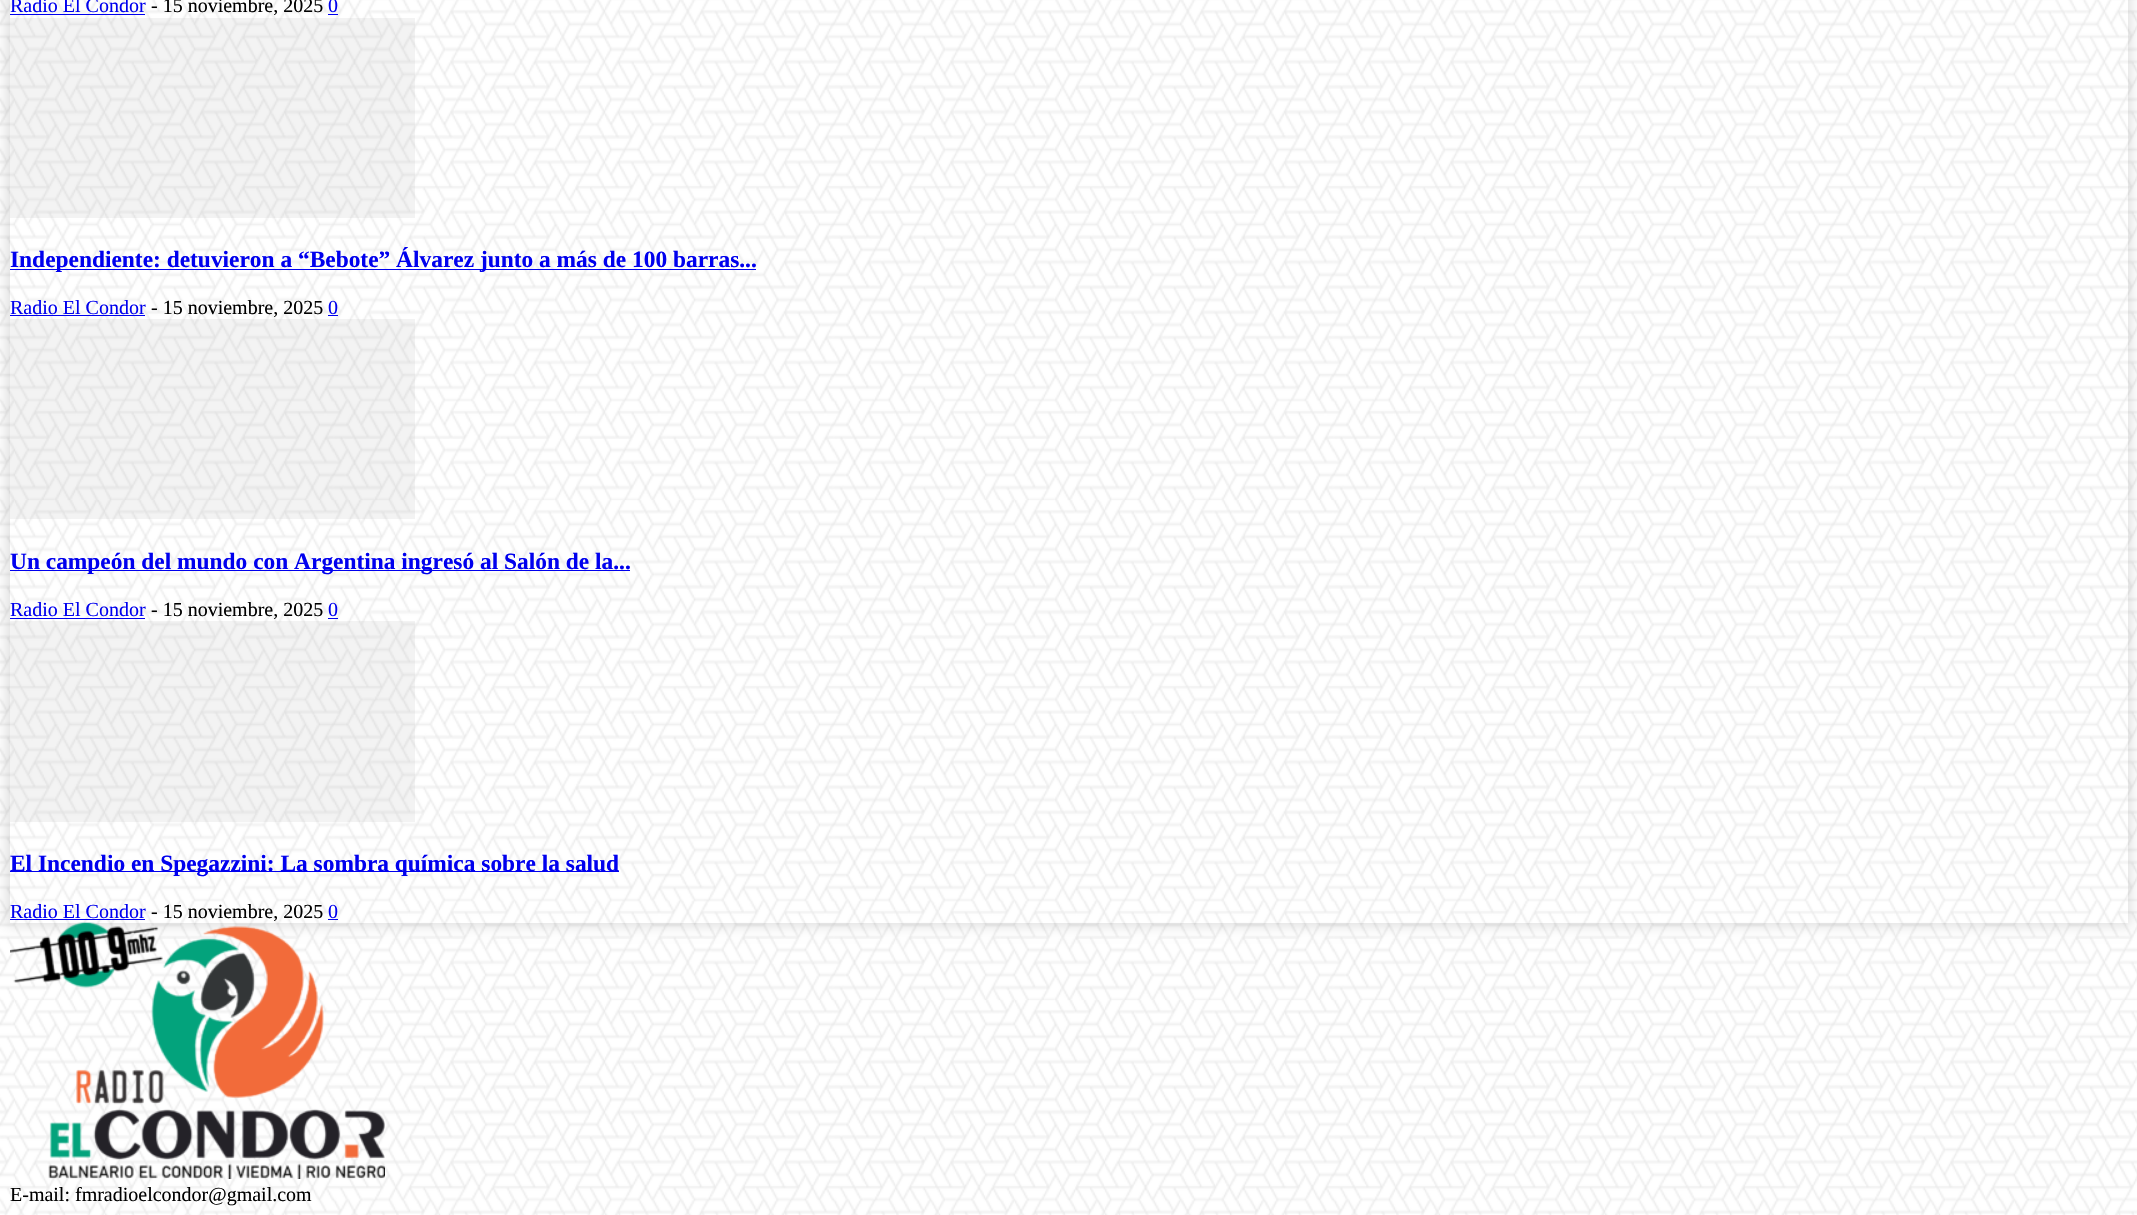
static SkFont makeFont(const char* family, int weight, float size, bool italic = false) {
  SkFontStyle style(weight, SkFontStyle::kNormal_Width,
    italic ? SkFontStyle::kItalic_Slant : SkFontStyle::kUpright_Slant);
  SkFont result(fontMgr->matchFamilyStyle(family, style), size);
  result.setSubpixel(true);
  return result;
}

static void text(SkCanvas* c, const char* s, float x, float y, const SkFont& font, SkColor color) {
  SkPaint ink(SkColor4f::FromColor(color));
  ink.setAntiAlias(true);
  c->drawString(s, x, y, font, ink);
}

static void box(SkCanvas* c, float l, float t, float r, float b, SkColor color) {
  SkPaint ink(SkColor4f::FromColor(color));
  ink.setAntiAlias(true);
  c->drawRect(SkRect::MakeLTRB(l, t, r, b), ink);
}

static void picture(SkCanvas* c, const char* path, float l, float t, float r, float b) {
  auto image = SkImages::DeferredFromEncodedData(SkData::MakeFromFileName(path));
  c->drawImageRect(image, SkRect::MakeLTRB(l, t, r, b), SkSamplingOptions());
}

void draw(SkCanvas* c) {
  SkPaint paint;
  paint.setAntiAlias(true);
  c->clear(0xffffffff);
  picture(c, "img_01.png", 0, 0, 2137, 1215);
  c->save();
  c->clipPath(SkPathBuilder(SkPathFillType::kEvenOdd).moveTo(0, 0).lineTo(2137, 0).lineTo(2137, 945).lineTo(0, 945).close().moveTo(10, -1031).lineTo(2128, -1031).lineTo(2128, 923).lineTo(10, 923).close().detach(), true);
  paint.setColor(0x1f000000);
  paint.setMaskFilter(SkMaskFilter::MakeBlur(kNormal_SkBlurStyle, 6));
  c->drawRect(SkRect::MakeLTRB(6, -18, 2131, 926), paint);
  paint.setMaskFilter(nullptr);
  c->restore();
  SkFont face1 = makeFont("Liberation Serif", 400, 20);
  text(c, "Radio El Condor", 10, 12, face1, 0xff0000ee);
  box(c, 10, 14, 145, 15, 0xff0000ee);
  text(c, "- 15 noviembre, 2025", 151, 12, face1, 0xff000000);
  text(c, "0", 328, 12, face1, 0xff0000ee);
  box(c, 328, 14, 338, 15, 0xff0000ee);
  box(c, 10, 18, 415, 218, 0x26aeaeae);
  box(c, 10, 269, 756, 270, 0xff0000ee);
  SkFont face2 = makeFont("Liberation Serif", 700, 23.4f);
  text(c, "Independiente: detuvieron a “Bebote” Álvarez junto a más de 100 barras...", 10, 267, face2, 0xff0000ee);
  text(c, "Radio El Condor", 10, 314, face1, 0xff0000ee);
  box(c, 10, 315, 145, 316, 0xff0000ee);
  text(c, "- 15 noviembre, 2025", 151, 314, face1, 0xff000000);
  text(c, "0", 328, 314, face1, 0xff0000ee);
  box(c, 328, 315, 338, 316, 0xff0000ee);
  box(c, 10, 319, 415, 519, 0x26aeaeae);
  box(c, 10, 570, 630, 571, 0xff0000ee);
  text(c, "Un campeón del mundo con Argentina ingresó al Salón de la...", 10, 569, face2, 0xff0000ee);
  text(c, "Radio El Condor", 10, 616, face1, 0xff0000ee);
  box(c, 10, 618, 145, 619, 0xff0000ee);
  text(c, "- 15 noviembre, 2025", 151, 616, face1, 0xff000000);
  text(c, "0", 328, 616, face1, 0xff0000ee);
  box(c, 328, 618, 338, 619, 0xff0000ee);
  box(c, 10, 621, 415, 822, 0x26aeaeae);
  box(c, 10, 871, 619, 872, 0xff0000ee);
  text(c, "El Incendio en Spegazzini: La sombra química sobre la salud", 10, 871, face2, 0xff0000ee);
  text(c, "Radio El Condor", 10, 918, face1, 0xff0000ee);
  box(c, 10, 919, 145, 920, 0xff0000ee);
  text(c, "- 15 noviembre, 2025", 151, 918, face1, 0xff000000);
  text(c, "0", 328, 918, face1, 0xff0000ee);
  box(c, 328, 919, 338, 920, 0xff0000ee);
  picture(c, "img_02.png", 10, 922, 385, 1179);
  text(c, "E-mail: fmradioelcondor@gmail.com", 10, 1201, face1, 0xff000000);
}
